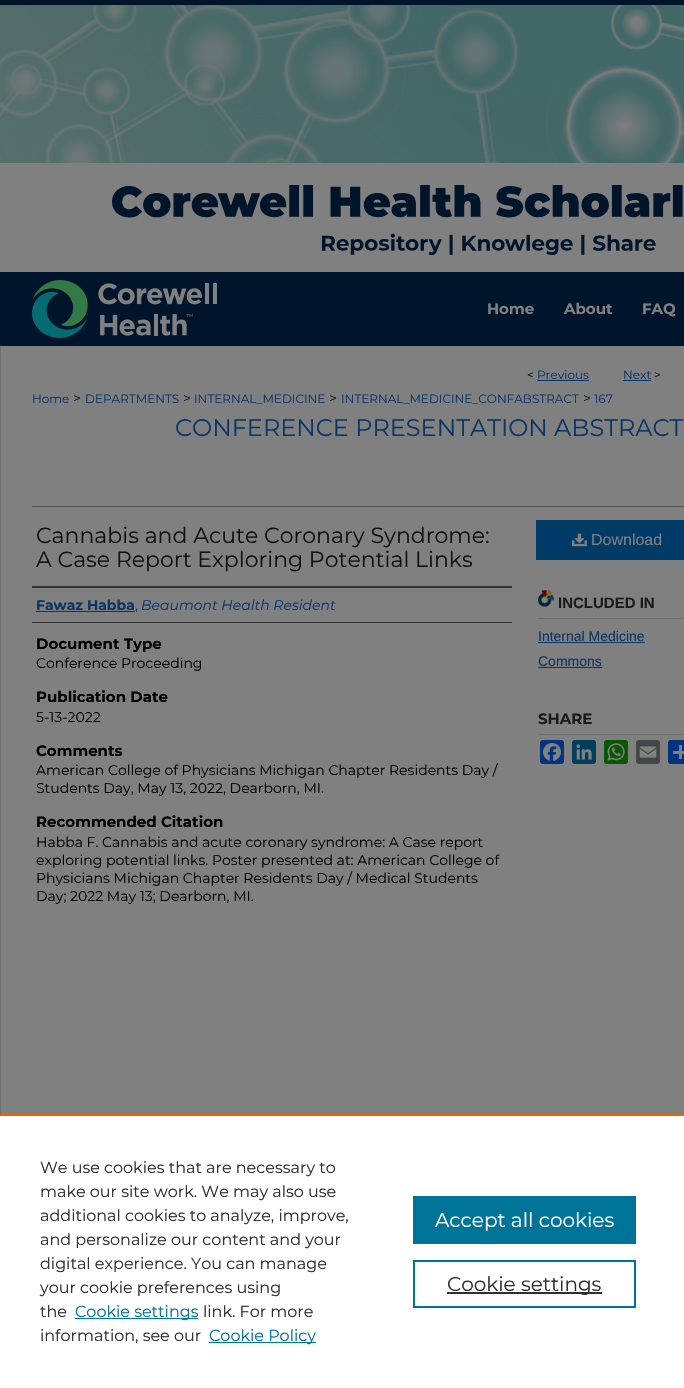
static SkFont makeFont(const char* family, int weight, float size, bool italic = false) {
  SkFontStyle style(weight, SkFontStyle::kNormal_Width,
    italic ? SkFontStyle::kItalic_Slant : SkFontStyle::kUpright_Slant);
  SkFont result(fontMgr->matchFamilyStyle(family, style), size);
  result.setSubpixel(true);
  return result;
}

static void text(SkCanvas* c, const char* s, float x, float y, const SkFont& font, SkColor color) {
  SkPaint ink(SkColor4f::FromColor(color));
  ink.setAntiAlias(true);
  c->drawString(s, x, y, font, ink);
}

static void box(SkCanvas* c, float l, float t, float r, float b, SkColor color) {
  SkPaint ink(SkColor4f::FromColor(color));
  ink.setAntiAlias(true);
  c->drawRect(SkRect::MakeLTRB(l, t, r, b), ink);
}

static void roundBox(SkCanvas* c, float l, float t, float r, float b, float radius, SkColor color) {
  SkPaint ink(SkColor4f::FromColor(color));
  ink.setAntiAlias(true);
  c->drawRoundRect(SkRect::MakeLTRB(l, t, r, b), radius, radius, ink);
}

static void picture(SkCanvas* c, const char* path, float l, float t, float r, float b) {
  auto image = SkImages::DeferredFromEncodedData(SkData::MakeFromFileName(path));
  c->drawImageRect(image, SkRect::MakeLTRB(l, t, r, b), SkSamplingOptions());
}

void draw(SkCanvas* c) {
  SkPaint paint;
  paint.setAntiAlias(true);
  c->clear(0xff808080);
  picture(c, "img_01.png", 0, 0, 684, 163);
  picture(c, "img_02.png", 112, 185, 683, 255);
  box(c, 0, 272, 684, 346, 0xff00142b);
  picture(c, "img_03.png", 32, 280, 217, 338);
  SkFont face1 = makeFont("Montserrat", 700, 15);
  text(c, "Home", 487, 314, face1, 0xff808080);
  text(c, "About", 564, 314, face1, 0xff808080);
  text(c, "FAQ", 642, 314, face1, 0xff808080);
  box(c, 0, 346, 1, 1114, 0xff727272);
  SkFont face2 = makeFont("Montserrat", 400, 12);
  text(c, "<", 527, 379, face2, 0xff111111);
  text(c, "Previous", 537, 379, face2, 0xff0c3568);
  box(c, 537, 380, 589, 381, 0xff0c3568);
  text(c, "Next", 623, 379, face2, 0xff0c3568);
  box(c, 623, 380, 651, 381, 0xff0c3568);
  text(c, ">", 654, 379, face2, 0xff111111);
  text(c, "Home", 32, 403, face2, 0xff0c3568);
  SkFont face3 = makeFont("Montserrat", 400, 14);
  text(c, ">", 73, 403, face3, 0xff000000);
  text(c, "DEPARTMENTS", 85, 403, face2, 0xff0c3568);
  text(c, ">", 183, 403, face3, 0xff000000);
  text(c, "INTERNAL_MEDICINE", 194, 403, face2, 0xff0c3568);
  text(c, ">", 329, 403, face3, 0xff000000);
  text(c, "INTERNAL_MEDICINE_CONFABSTRACT", 341, 403, face2, 0xff0c3568);
  text(c, ">", 583, 403, face3, 0xff000000);
  text(c, "167", 594, 403, face2, 0xff0c3568);
  SkFont face4 = makeFont("Montserrat", 400, 24);
  text(c, "CONFERENCE PRESENTATION ABSTRACT", 175, 436, face4, 0xff0c3568);
  box(c, 32, 506, 684, 507, 0xff555555);
  SkFont face5 = makeFont("Montserrat", 400, 22);
  text(c, "Cannabis and Acute Coronary Syndrome:", 36, 543, face5, 0xff111111);
  text(c, "A Case Report Exploring Potential Links", 36, 567, face5, 0xff111111);
  box(c, 32, 586, 512, 588, 0xff333333);
  box(c, 32, 622, 512, 623, 0xff333333);
  SkFont face6 = makeFont("Montserrat", 700, 14);
  text(c, "Fawaz Habba", 36, 610, face6, 0xff0c3568);
  box(c, 36, 611, 135, 612, 0xff0c3568);
  text(c, ",", 135, 610, face3, 0xff0c3568);
  SkFont face7 = makeFont("Montserrat", 400, 14, true);
  text(c, "Beaumont Health Resident", 141, 610, face7, 0xff0c3568);
  text(c, "Document Type", 36, 649, face1, 0xff000000);
  text(c, "Conference Proceeding", 36, 668, face3, 0xff000000);
  text(c, "Publication Date", 36, 702, face1, 0xff000000);
  text(c, "5-13-2022", 36, 722, face3, 0xff000000);
  text(c, "Comments", 36, 756, face1, 0xff000000);
  text(c, "American College of Physicians Michigan Chapter Residents Day /", 36, 775, face3, 0xff000000);
  text(c, "Students Day, May 13, 2022, Dearborn, MI.", 36, 793, face3, 0xff000000);
  text(c, "Recommended Citation", 36, 827, face1, 0xff000000);
  text(c, "Habba F. Cannabis and acute coronary syndrome: A Case report", 36, 847, face3, 0xff000000);
  text(c, "exploring potential links. Poster presented at: American College of", 36, 865, face3, 0xff000000);
  text(c, "Physicians Michigan Chapter Residents Day / Medical Students", 36, 883, face3, 0xff000000);
  text(c, "Day; 2022 May 13; Dearborn, MI.", 36, 901, face3, 0xff000000);
  box(c, 536, 520, 684, 560, 0xff003a66);
  picture(c, "img_04.png", 572, 533, 587, 547);
  SkFont face8 = makeFont("Liberation Sans", 400, 16);
  text(c, "Download", 591, 545, face8, 0xff808080);
  picture(c, "img_05.png", 538, 590, 554, 607);
  box(c, 538, 618, 684, 619, 0xff6f6f6f);
  SkFont face9 = makeFont("Liberation Sans", 700, 15);
  text(c, "INCLUDED IN", 558, 608, face9, 0xff1a1a1a);
  SkFont face10 = makeFont("Liberation Sans", 400, 14);
  text(c, "Internal Medicine", 538, 641, face10, 0xff0c3568);
  box(c, 538, 642, 645, 643, 0xff0c3568);
  text(c, "Commons", 538, 666, face10, 0xff0c3568);
  box(c, 538, 667, 602, 668, 0xff0c3568);
  box(c, 538, 734, 684, 735, 0xff6f6f6f);
  text(c, "SHARE", 538, 724, face1, 0xff1a1a1a);
  roundBox(c, 540, 740, 564, 764, 3, 0xff043380);
  picture(c, "img_06.png", 543, 743, 561, 761);
  roundBox(c, 572, 740, 596, 764, 3, 0xff003e5b);
  picture(c, "img_07.png", 576, 744, 592, 760);
  roundBox(c, 604, 740, 628, 764, 3, 0xff095805);
  picture(c, "img_08.png", 607, 743, 625, 761);
  roundBox(c, 636, 740, 660, 764, 3, 0xff444548);
  picture(c, "img_09.png", 639, 746, 657, 758);
  roundBox(c, 668, 740, 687, 764, 3, 0xff013380);
  box(c, 679, 745, 682, 759, 0xff808080);
  box(c, 673, 751, 684, 754, 0xff808080);
  box(c, 0, 1116, 684, 1388, 0xffffffff);
  box(c, 0, 1114, 684, 1116, 0xffeb6500);
  SkFont face11 = makeFont("Montserrat", 400, 16);
  text(c, "We use cookies that are necessary to", 40, 1173, face11, 0xff2e2e2e);
  text(c, "make our site work. We may also use", 40, 1197, face11, 0xff2e2e2e);
  text(c, "additional cookies to analyze, improve,", 40, 1221, face11, 0xff2e2e2e);
  text(c, "and personalize our content and your", 40, 1245, face11, 0xff2e2e2e);
  text(c, "digital experience. You can manage", 40, 1269, face11, 0xff2e2e2e);
  text(c, "your cookie preferences using", 40, 1293, face11, 0xff2e2e2e);
  text(c, "the", 40, 1317, face11, 0xff2e2e2e);
  box(c, 75, 1318, 198, 1319, 0xff007398);
  text(c, "Cookie settings", 75, 1317, face11, 0xff007398);
  text(c, "link. For more", 203, 1317, face11, 0xff2e2e2e);
  text(c, "information, see our", 40, 1341, face11, 0xff2e2e2e);
  box(c, 209, 1342, 316, 1343, 0xff007398);
  text(c, "Cookie Policy", 209, 1341, face11, 0xff007398);
  box(c, 413, 1196, 636, 1244, 0xff007398);
  SkFont face12 = makeFont("Montserrat", 400, 20);
  text(c, "Accept all cookies", 435, 1227, face12, 0xffffffff);
  paint.setStyle(SkPaint::kStroke_Style);
  paint.setStrokeWidth(2);
  paint.setColor(0xff007398);
  c->drawRect(SkRect::MakeLTRB(414, 1261, 635, 1307), paint);
  box(c, 447, 1292, 602, 1294, 0xff2e2e2e);
  text(c, "Cookie settings", 447, 1291, face12, 0xff2e2e2e);
}
